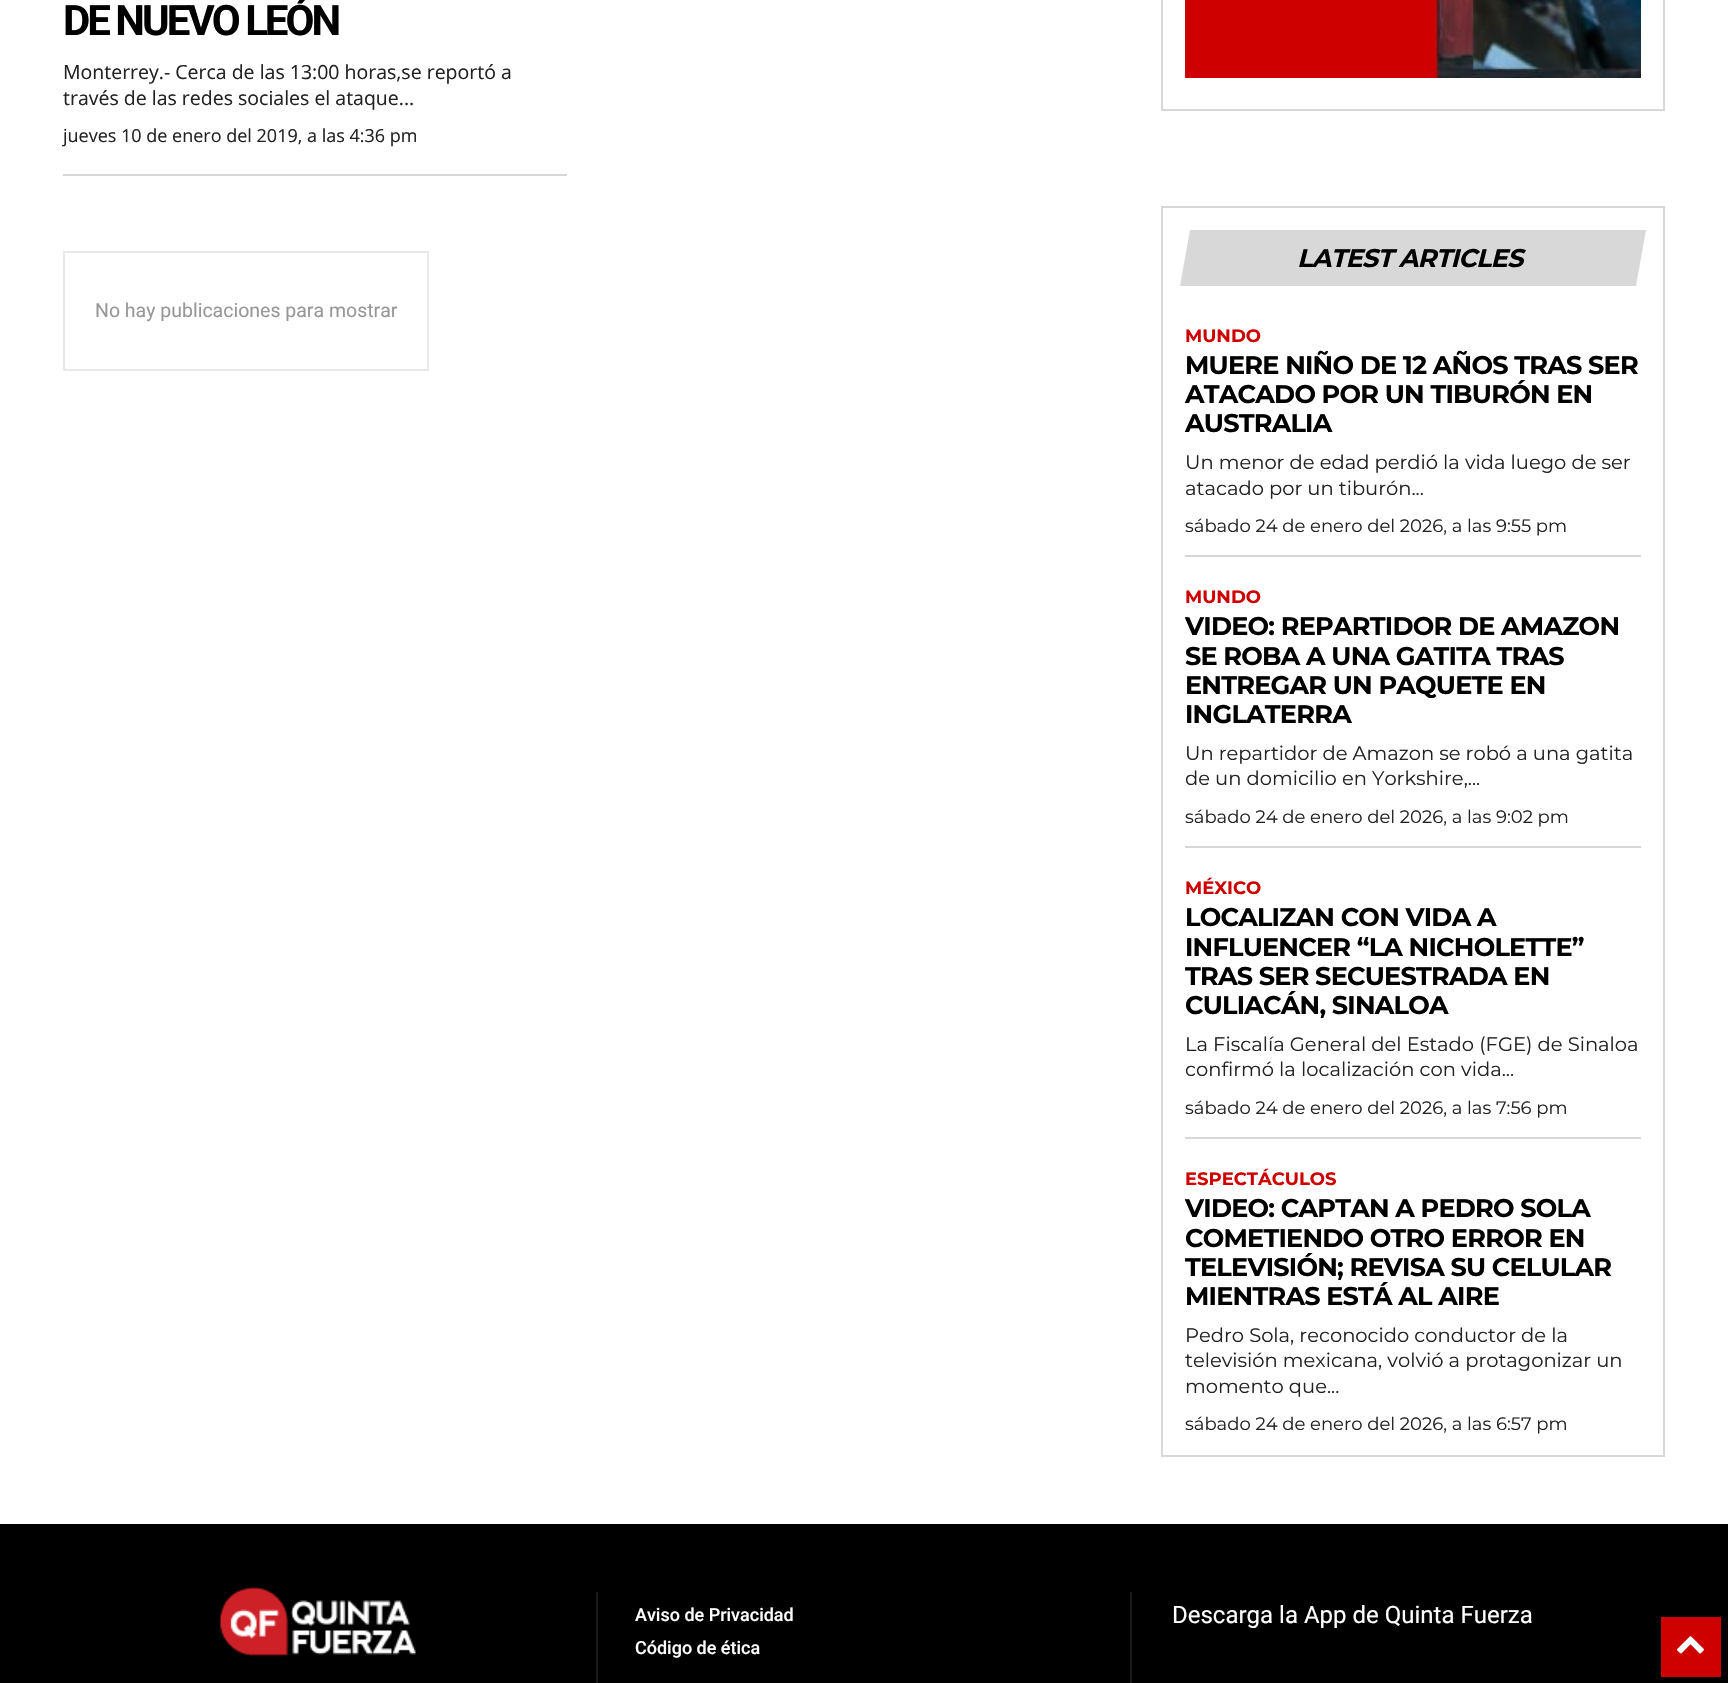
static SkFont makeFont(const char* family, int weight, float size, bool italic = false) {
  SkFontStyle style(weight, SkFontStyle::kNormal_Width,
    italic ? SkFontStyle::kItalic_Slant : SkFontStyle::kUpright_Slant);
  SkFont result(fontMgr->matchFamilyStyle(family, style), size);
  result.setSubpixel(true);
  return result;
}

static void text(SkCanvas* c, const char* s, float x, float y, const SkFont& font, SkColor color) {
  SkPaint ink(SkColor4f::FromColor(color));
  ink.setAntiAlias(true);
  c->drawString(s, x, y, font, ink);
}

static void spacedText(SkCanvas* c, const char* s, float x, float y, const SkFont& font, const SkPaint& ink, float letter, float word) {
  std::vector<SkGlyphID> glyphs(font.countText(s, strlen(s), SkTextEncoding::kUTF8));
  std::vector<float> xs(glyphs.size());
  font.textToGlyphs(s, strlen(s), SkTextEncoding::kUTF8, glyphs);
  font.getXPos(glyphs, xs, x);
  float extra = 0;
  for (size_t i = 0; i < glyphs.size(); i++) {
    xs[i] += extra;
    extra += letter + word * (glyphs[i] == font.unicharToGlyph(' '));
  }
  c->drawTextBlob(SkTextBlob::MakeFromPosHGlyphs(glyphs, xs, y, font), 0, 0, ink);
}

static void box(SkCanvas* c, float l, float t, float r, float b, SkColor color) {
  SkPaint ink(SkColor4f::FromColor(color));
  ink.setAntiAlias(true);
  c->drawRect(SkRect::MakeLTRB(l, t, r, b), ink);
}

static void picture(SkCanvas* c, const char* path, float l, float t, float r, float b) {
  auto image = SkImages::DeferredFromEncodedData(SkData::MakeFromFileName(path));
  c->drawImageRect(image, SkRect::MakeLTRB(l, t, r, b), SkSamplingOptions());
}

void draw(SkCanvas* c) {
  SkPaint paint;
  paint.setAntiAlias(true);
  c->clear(0xffffffff);
  box(c, 63, 174, 567, 176, 0xffd8d8d8);
  SkFont face1 = makeFont("Roboto", 700, 42);
  paint.setColor(0xff000000);
  spacedText(c, "DE NUEVO LEÓN", 63, 35, face1, paint, -3, 0);
  SkFont face2 = makeFont("Open Sans", 400, 19.5f);
  text(c, "Monterrey.- Cerca de las 13:00 horas,se reportó a", 63, 79, face2, 0xff222222);
  text(c, "través de las redes sociales el ataque...", 63, 105, face2, 0xff222222);
  SkFont face3 = makeFont("Open Sans", 400, 18);
  text(c, "jueves 10 de enero del 2019, a las 4:36 pm", 63, 142, face3, 0xff222222);
  paint.setStyle(SkPaint::kStroke_Style);
  paint.setStrokeWidth(2);
  paint.setColor(0xffd8d8d8);
  c->drawRect(SkRect::MakeLTRB(1162, -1, 1664, 110), paint);
  picture(c, "img_01.png", 1185, 0, 1641, 78);
  paint.setColor(0xffe8e8e8);
  c->drawRect(SkRect::MakeLTRB(64, 252, 428, 370), paint);
  SkFont face4 = makeFont("Roboto", 400, 19.5f);
  text(c, "No hay publicaciones para mostrar", 95, 317, face4, 0xff979797);
  paint.setColor(0xffd8d8d8);
  c->drawRect(SkRect::MakeLTRB(1162, 207, 1664, 1456), paint);
  paint.setStyle(SkPaint::kFill_Style);
  c->drawPath(SkPathBuilder().moveTo(1190, 230).lineTo(1646, 230).lineTo(1636, 286).lineTo(1180, 286).close().detach(), paint);
  SkFont face5 = makeFont("Montserrat", 700, 25.5f, true);
  paint.setColor(0xff000000);
  spacedText(c, "LATEST ARTICLES", 1297, 267, face5, paint, -0.75f, 0);
  SkFont face6 = makeFont("Montserrat", 700, 18);
  text(c, "MUNDO", 1185, 342, face6, 0xffce0000);
  SkFont face7 = makeFont("Montserrat", 700, 25.5f);
  spacedText(c, "MUERE NIÑO DE 12 AÑOS TRAS SER", 1185, 374, face7, paint, -0.75f, 0);
  spacedText(c, "ATACADO POR UN TIBURÓN EN", 1185, 403, face7, paint, -0.75f, 0);
  spacedText(c, "AUSTRALIA", 1185, 432, face7, paint, -0.75f, 0);
  SkFont face8 = makeFont("Montserrat", 400, 19.5f);
  text(c, "Un menor de edad perdió la vida luego de ser", 1185, 469, face8, 0xff222222);
  text(c, "atacado por un tiburón...", 1185, 495, face8, 0xff222222);
  SkFont face9 = makeFont("Montserrat", 400, 18);
  text(c, "sábado 24 de enero del 2026, a las 9:55 pm", 1185, 532, face9, 0xff222222);
  box(c, 1185, 555, 1641, 557, 0xffd8d8d8);
  text(c, "MUNDO", 1185, 603, face6, 0xffce0000);
  spacedText(c, "VIDEO: REPARTIDOR DE AMAZON", 1185, 635, face7, paint, -0.75f, 0);
  spacedText(c, "SE ROBA A UNA GATITA TRAS", 1185, 665, face7, paint, -0.75f, 0);
  spacedText(c, "ENTREGAR UN PAQUETE EN", 1185, 694, face7, paint, -0.75f, 0);
  spacedText(c, "INGLATERRA", 1185, 723, face7, paint, -0.75f, 0);
  text(c, "Un repartidor de Amazon se robó a una gatita", 1185, 760, face8, 0xff222222);
  text(c, "de un domicilio en Yorkshire,...", 1185, 785, face8, 0xff222222);
  text(c, "sábado 24 de enero del 2026, a las 9:02 pm", 1185, 823, face9, 0xff222222);
  box(c, 1185, 846, 1641, 848, 0xffd8d8d8);
  text(c, "MÉXICO", 1185, 894, face6, 0xffce0000);
  spacedText(c, "LOCALIZAN CON VIDA A", 1185, 926, face7, paint, -0.75f, 0);
  spacedText(c, "INFLUENCER “LA NICHOLETTE”", 1185, 956, face7, paint, -0.75f, 0);
  spacedText(c, "TRAS SER SECUESTRADA EN", 1185, 985, face7, paint, -0.75f, 0);
  spacedText(c, "CULIACÁN, SINALOA", 1185, 1014, face7, paint, -0.75f, 0);
  text(c, "La Fiscalía General del Estado (FGE) de Sinaloa", 1185, 1051, face8, 0xff222222);
  text(c, "confirmó la localización con vida...", 1185, 1076, face8, 0xff222222);
  text(c, "sábado 24 de enero del 2026, a las 7:56 pm", 1185, 1114, face9, 0xff222222);
  box(c, 1185, 1137, 1641, 1139, 0xffd8d8d8);
  text(c, "ESPECTÁCULOS", 1185, 1185, face6, 0xffce0000);
  spacedText(c, "VIDEO: CAPTAN A PEDRO SOLA", 1185, 1217, face7, paint, -0.75f, 0);
  spacedText(c, "COMETIENDO OTRO ERROR EN", 1185, 1247, face7, paint, -0.75f, 0);
  spacedText(c, "TELEVISIÓN; REVISA SU CELULAR", 1185, 1276, face7, paint, -0.75f, 0);
  spacedText(c, "MIENTRAS ESTÁ AL AIRE", 1185, 1305, face7, paint, -0.75f, 0);
  text(c, "Pedro Sola, reconocido conductor de la", 1185, 1342, face8, 0xff222222);
  text(c, "televisión mexicana, volvió a protagonizar un", 1185, 1367, face8, 0xff222222);
  text(c, "momento que...", 1185, 1393, face8, 0xff222222);
  text(c, "sábado 24 de enero del 2026, a las 6:57 pm", 1185, 1430, face9, 0xff222222);
  box(c, 0, 1524, 1728, 1683, 0xff000000);
  box(c, 596, 1592, 598, 1683, 0xff1a1a1a);
  picture(c, "img_02.png", 219, 1586, 416, 1657);
  box(c, 1130, 1592, 1132, 1683, 0xff1a1a1a);
  SkFont face10 = makeFont("Roboto", 500, 18);
  text(c, "Aviso de Privacidad", 635, 1621, face10, 0xffffffff);
  text(c, "Código de ética", 635, 1654, face10, 0xffffffff);
  SkFont face11 = makeFont("Roboto", 400, 24);
  text(c, "Descarga la App de Quinta Fuerza", 1172, 1623, face11, 0xffffffff);
  box(c, 1661, 1617, 1721, 1677, 0xffce0000);
  picture(c, "img_03.png", 1677, 1636, 1704, 1654);
}
